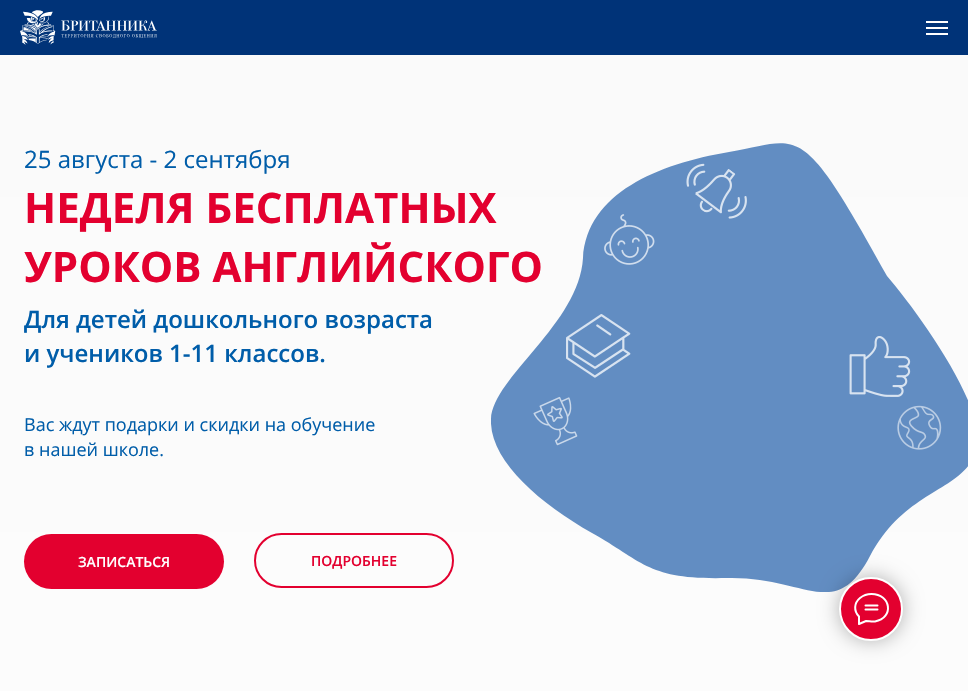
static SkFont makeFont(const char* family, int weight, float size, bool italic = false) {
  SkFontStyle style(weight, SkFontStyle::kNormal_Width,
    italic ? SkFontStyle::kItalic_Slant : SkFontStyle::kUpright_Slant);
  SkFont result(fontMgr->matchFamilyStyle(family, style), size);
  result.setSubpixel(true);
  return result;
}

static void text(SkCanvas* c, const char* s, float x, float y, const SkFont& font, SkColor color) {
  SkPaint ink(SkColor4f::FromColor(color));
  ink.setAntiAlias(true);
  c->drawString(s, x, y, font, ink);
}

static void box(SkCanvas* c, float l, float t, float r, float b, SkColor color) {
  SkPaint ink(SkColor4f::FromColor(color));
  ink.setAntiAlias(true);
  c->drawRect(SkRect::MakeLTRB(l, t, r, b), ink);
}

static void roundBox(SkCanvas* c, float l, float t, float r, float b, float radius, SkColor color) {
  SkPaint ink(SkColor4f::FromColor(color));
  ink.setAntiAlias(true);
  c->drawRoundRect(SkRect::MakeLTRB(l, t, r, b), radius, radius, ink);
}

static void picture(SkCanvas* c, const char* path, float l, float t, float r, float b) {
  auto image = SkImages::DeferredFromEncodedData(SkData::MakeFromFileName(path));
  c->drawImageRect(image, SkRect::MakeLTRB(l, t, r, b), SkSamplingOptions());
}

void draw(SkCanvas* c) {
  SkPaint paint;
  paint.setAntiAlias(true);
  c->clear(0xffffffff);
  box(c, 0, 0, 968, 55, 0xff003378);
  picture(c, "img_01.png", 20, 10, 157, 45);
  box(c, 926, 21, 948, 23, 0xffffffff);
  box(c, 926, 27, 948, 29, 0xffffffff);
  box(c, 926, 33, 948, 35, 0xffffffff);
  {
    const SkColor colors[] = {0xfffafafa, 0xfffcfcfc};
    const float stops[] = {0, 1};
    const SkPoint ends[] = {{484, 30}, {484, 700}};
    paint.setShader(SkGradientShader::MakeLinear(ends, colors, stops, 2, SkTileMode::kClamp));
    paint.setAlpha(255);
  }
  c->drawRect(SkRect::MakeLTRB(0, 55, 968, 691), paint);
  SkFont face1 = makeFont("Open Sans", 400, 24);
  text(c, "25 августа - 2 сентября", 24, 168, face1, 0xff005da9);
  c->save();
  c->clipRect(SkRect::MakeLTRB(491, 143, 968, 592));
  paint.setShader(nullptr);
  paint.setColor(0xff628dc2);
  c->drawPath(SkPathBuilder(SkPathFillType::kEvenOdd).moveTo(887, 276).cubicTo(799, 116, 801, 140, 729, 152).cubicTo(658, 164, 587, 193, 583, 258).cubicTo(579, 324, 493, 377, 491, 419).cubicTo(489, 460, 539, 503, 592, 533).cubicTo(644, 562, 648, 580, 727, 578).cubicTo(806, 576, 835, 623, 870, 556).cubicTo(906, 489, 959, 493, 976, 453).cubicTo(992, 414, 918, 312, 887, 276).close().detach(), paint);
  c->restore();
  SkFont face2 = makeFont("Open Sans", 700, 42);
  text(c, "НЕДЕЛЯ БЕСПЛАТНЫХ", 24, 223, face2, 0xffe3002f);
  text(c, "УРОКОВ АНГЛИЙСКОГО", 24, 282, face2, 0xffe3002f);
  picture(c, "img_02.png", 604, 214, 655, 265);
  picture(c, "img_03.png", 686, 163, 747, 219);
  SkFont face3 = makeFont("Open Sans", 600, 24);
  text(c, "Для детей дошкольного возраста", 24, 328, face3, 0xff005da9);
  text(c, "и учеников 1-11 классов.", 24, 362, face3, 0xff005da9);
  picture(c, "img_04.png", 566, 314, 631, 378);
  picture(c, "img_05.png", 849, 336, 911, 397);
  SkFont face4 = makeFont("Open Sans", 400, 18);
  text(c, "Вас ждут подарки и скидки на обучение", 24, 431, face4, 0xff005da9);
  text(c, "в нашей школе.", 24, 456, face4, 0xff005da9);
  picture(c, "img_06.png", 533, 396, 578, 446);
  picture(c, "img_07.png", 897, 405, 942, 450);
  roundBox(c, 24, 534, 224, 589, 27.5f, 0xffe3002f);
  SkFont face5 = makeFont("Open Sans", 600, 14);
  text(c, "ЗАПИСАТЬСЯ", 78, 567, face5, 0xffffffff);
  paint.setStyle(SkPaint::kStroke_Style);
  paint.setStrokeWidth(2);
  paint.setColor(0xffe3002f);
  c->drawRoundRect(SkRect::MakeLTRB(255, 534, 453, 587), 26.5f, 26.5f, paint);
  text(c, "ПОДРОБНЕЕ", 311, 566, face5, 0xffe3002f);
  paint.setStyle(SkPaint::kFill_Style);
  paint.setColor(0x4d000000);
  paint.setMaskFilter(SkMaskFilter::MakeBlur(kNormal_SkBlurStyle, 10));
  c->drawRoundRect(SkRect::MakeLTRB(839, 577, 903, 641), 32, 32, paint);
  paint.setMaskFilter(nullptr);
  paint.setColor(0xffe3002f);
  c->drawCircle(871, 609, 31, paint);
  paint.setStyle(SkPaint::kStroke_Style);
  paint.setColor(0xffffffff);
  c->drawCircle(871, 609, 31, paint);
  paint.setStrokeCap(SkPaint::kRound_Cap);
  paint.setStrokeJoin(SkPaint::kRound_Join);
  c->drawPath(SkPathBuilder().moveTo(865.5f, 605.5f).lineTo(877.5f, 605.5f).moveTo(865.5f, 609.5f).lineTo(877.5f, 609.5f).moveTo(859, 616.5f).cubicTo(853.5f, 611, 854, 603, 860, 598).cubicTo(863, 595.5f, 867.5f, 594, 871.5f, 594).cubicTo(891, 594, 894.5f, 618, 875, 621.5f).cubicTo(871, 622, 869.5f, 621, 866, 621).lineTo(859, 624).lineTo(859, 617).close().detach(), paint);
}
